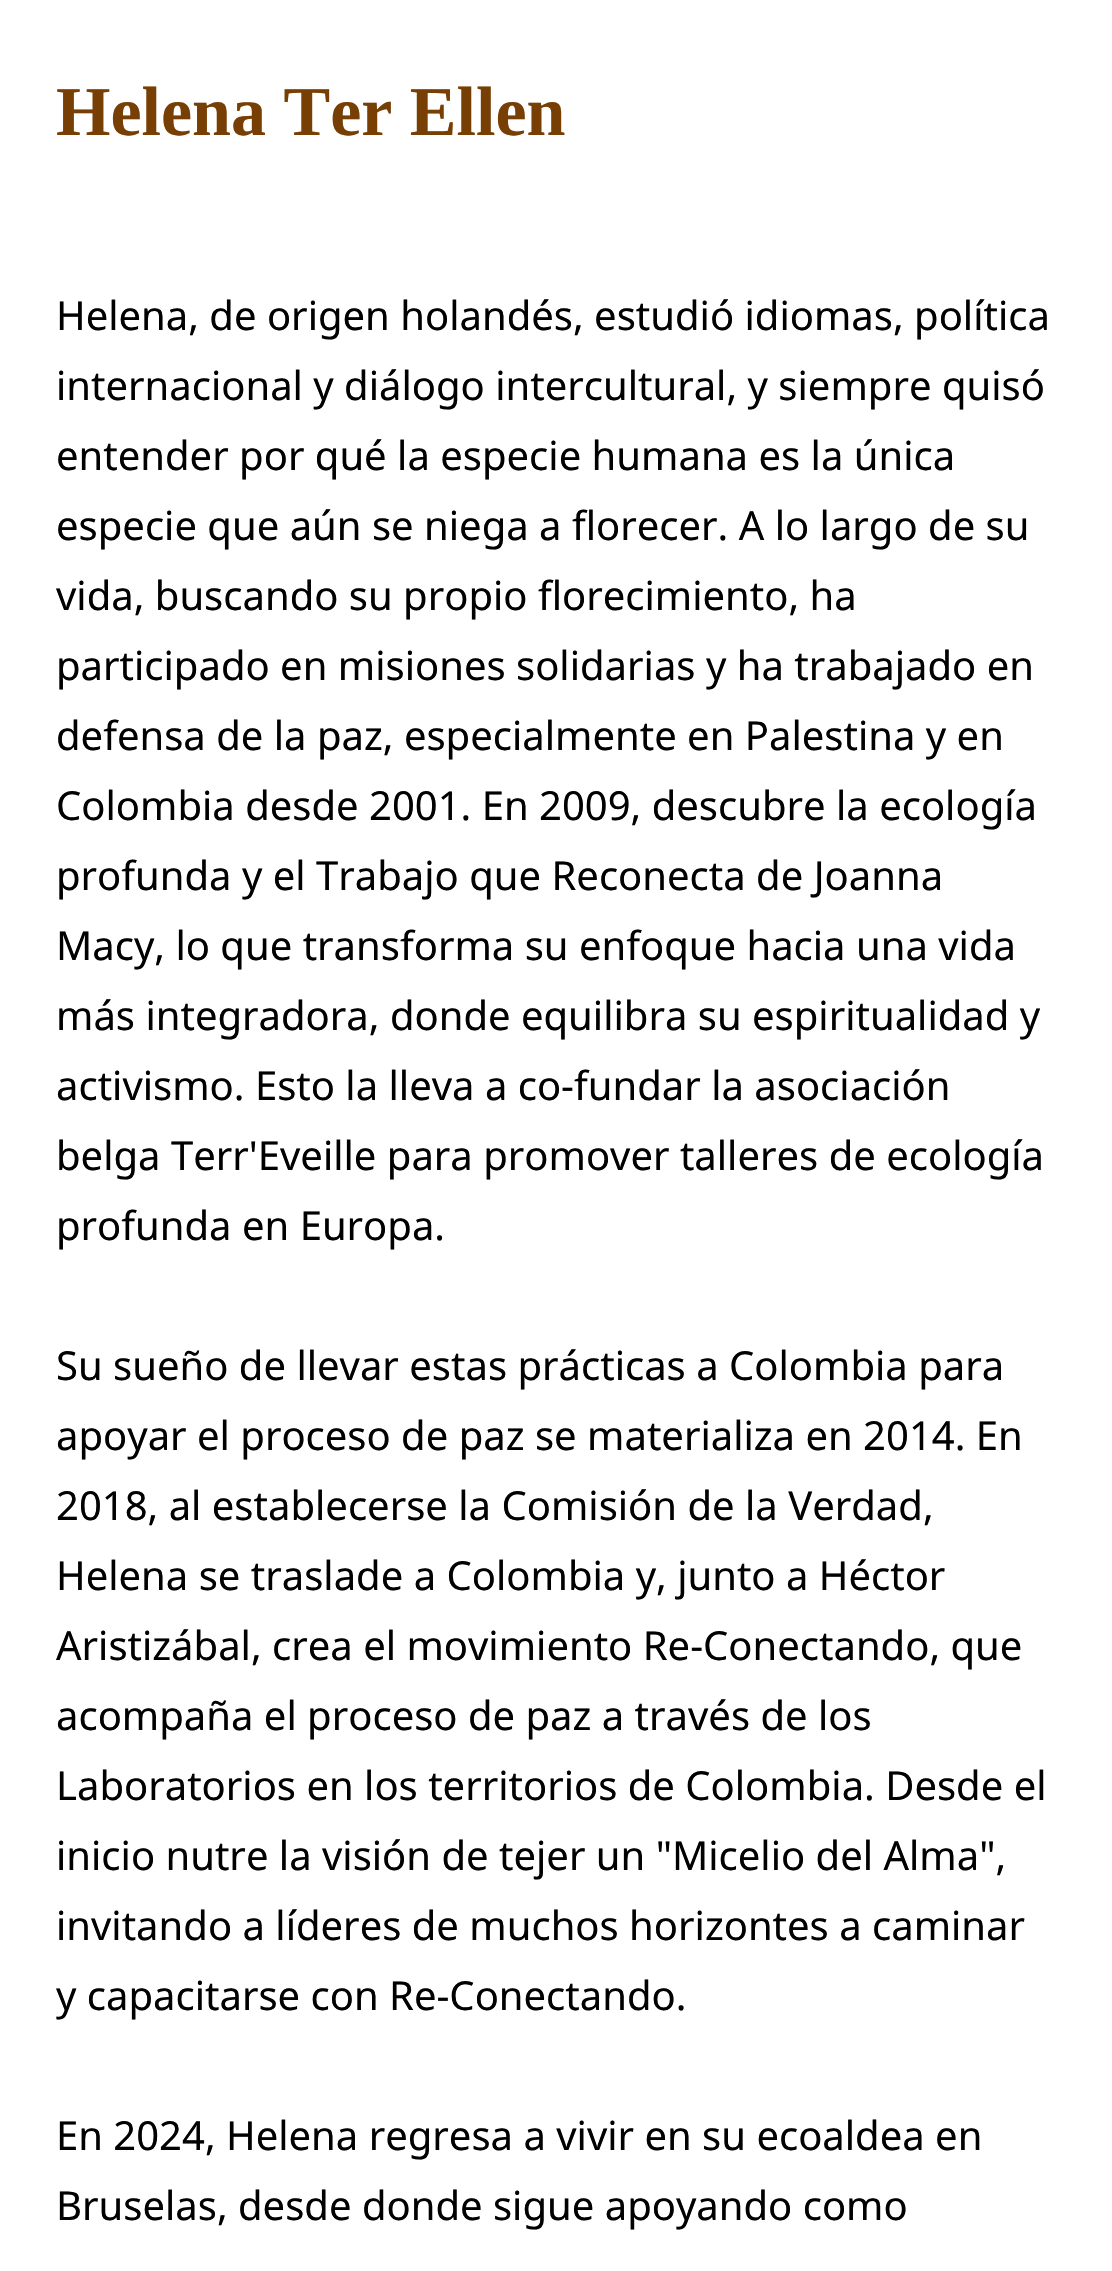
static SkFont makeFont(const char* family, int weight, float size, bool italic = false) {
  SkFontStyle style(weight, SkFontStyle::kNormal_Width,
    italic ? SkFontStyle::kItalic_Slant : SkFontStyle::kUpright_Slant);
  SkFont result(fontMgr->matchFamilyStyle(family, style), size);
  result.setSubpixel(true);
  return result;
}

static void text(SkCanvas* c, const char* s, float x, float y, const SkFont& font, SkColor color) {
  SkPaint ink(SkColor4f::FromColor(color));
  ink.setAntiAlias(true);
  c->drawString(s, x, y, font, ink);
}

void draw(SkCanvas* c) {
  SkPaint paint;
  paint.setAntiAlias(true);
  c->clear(0xffffffff);
  SkFont face1 = makeFont("Liberation Serif", 700, 70);
  text(c, "Helena Ter Ellen", 56, 135, face1, 0xff783f04);
  SkFont face2 = makeFont("Noto Sans Palmyrene", 400, 40);
  text(c, "Helena, de origen holandés, estudió idiomas, política", 56, 330, face2, 0xff000000);
  text(c, "internacional y diálogo intercultural, y siempre quisó", 56, 400, face2, 0xff000000);
  text(c, "entender por qué la especie humana es la única", 56, 470, face2, 0xff000000);
  text(c, "especie que aún se niega a florecer. A lo largo de su", 56, 540, face2, 0xff000000);
  text(c, "vida, buscando su propio florecimiento, ha", 56, 610, face2, 0xff000000);
  text(c, "participado en misiones solidarias y ha trabajado en", 56, 680, face2, 0xff000000);
  text(c, "defensa de la paz, especialmente en Palestina y en", 56, 750, face2, 0xff000000);
  text(c, "Colombia desde 2001. En 2009, descubre la ecología", 56, 820, face2, 0xff000000);
  text(c, "profunda y el Trabajo que Reconecta de Joanna", 56, 890, face2, 0xff000000);
  text(c, "Macy, lo que transforma su enfoque hacia una vida", 56, 960, face2, 0xff000000);
  text(c, "más integradora, donde equilibra su espiritualidad y", 56, 1030, face2, 0xff000000);
  text(c, "activismo. Esto la lleva a co-fundar la asociación", 56, 1100, face2, 0xff000000);
  text(c, "belga Terr'Eveille para promover talleres de ecología", 56, 1170, face2, 0xff000000);
  text(c, "profunda en Europa.", 56, 1240, face2, 0xff000000);
  text(c, "Su sueño de llevar estas prácticas a Colombia para", 56, 1380, face2, 0xff000000);
  text(c, "apoyar el proceso de paz se materializa en 2014. En", 56, 1450, face2, 0xff000000);
  text(c, "2018, al establecerse la Comisión de la Verdad,", 56, 1520, face2, 0xff000000);
  text(c, "Helena se traslade a Colombia y, junto a Héctor", 56, 1590, face2, 0xff000000);
  text(c, "Aristizábal, crea el movimiento Re-Conectando, que", 56, 1660, face2, 0xff000000);
  text(c, "acompaña el proceso de paz a través de los", 56, 1730, face2, 0xff000000);
  text(c, "Laboratorios en los territorios de Colombia. Desde el", 56, 1800, face2, 0xff000000);
  text(c, "inicio nutre la visión de tejer un \"Micelio del Alma\",", 56, 1870, face2, 0xff000000);
  text(c, "invitando a líderes de muchos horizontes a caminar", 56, 1940, face2, 0xff000000);
  text(c, "y capacitarse con Re-Conectando.", 56, 2010, face2, 0xff000000);
  text(c, "En 2024, Helena regresa a vivir en su ecoaldea en", 56, 2150, face2, 0xff000000);
  text(c, "Bruselas, desde donde sigue apoyando como", 56, 2220, face2, 0xff000000);
}
